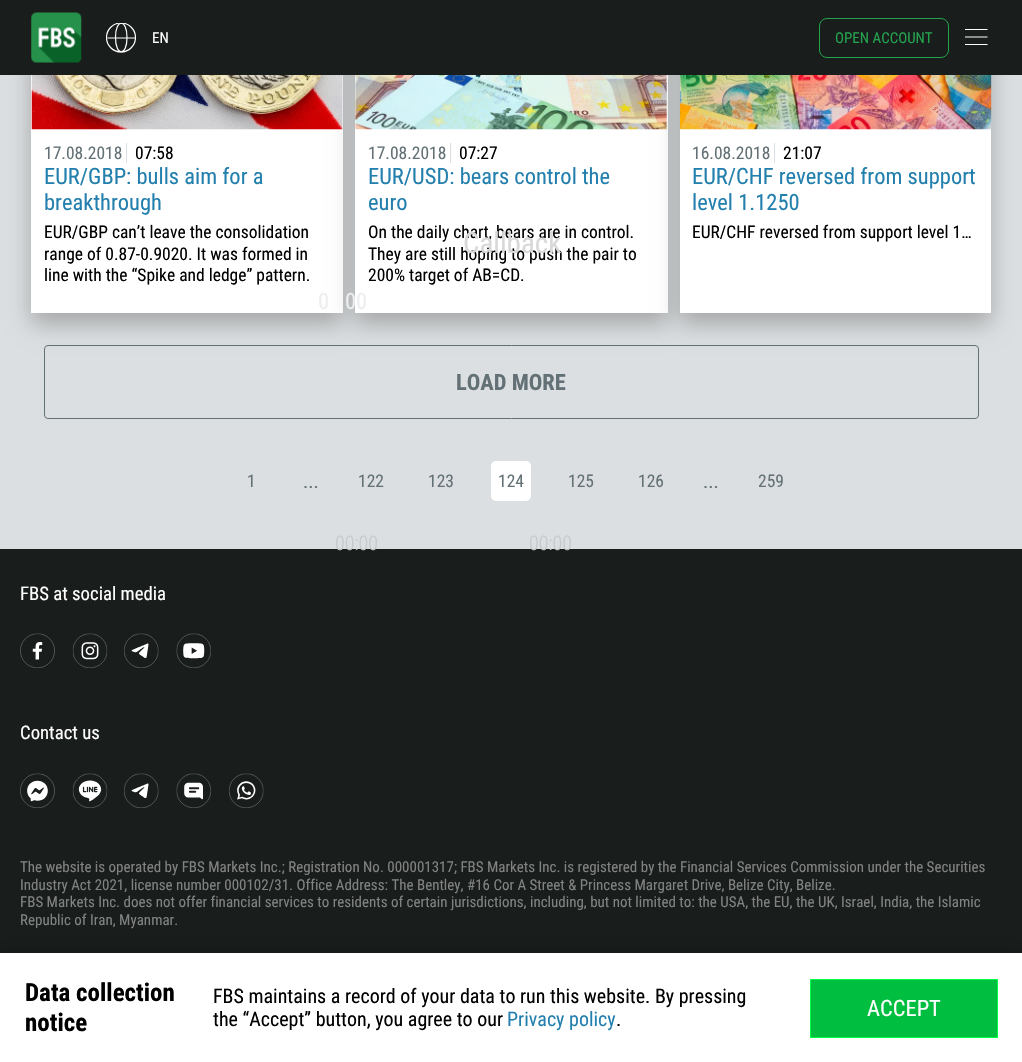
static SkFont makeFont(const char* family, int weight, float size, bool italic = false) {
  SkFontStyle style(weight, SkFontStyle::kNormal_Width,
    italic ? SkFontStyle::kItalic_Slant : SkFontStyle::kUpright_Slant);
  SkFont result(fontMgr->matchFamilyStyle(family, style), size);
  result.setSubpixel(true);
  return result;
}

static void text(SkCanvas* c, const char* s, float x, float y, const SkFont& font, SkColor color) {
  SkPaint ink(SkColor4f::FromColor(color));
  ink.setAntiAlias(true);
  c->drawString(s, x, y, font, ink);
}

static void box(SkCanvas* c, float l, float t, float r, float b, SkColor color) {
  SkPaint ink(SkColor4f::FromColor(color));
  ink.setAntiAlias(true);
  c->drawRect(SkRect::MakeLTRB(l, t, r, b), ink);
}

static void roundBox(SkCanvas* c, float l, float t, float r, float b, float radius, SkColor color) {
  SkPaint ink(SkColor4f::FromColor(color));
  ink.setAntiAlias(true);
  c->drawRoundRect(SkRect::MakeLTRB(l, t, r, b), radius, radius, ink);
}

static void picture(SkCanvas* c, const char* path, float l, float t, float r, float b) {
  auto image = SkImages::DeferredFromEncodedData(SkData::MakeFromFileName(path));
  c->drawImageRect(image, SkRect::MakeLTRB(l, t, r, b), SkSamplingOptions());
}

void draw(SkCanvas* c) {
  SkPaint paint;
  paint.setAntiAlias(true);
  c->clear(0xffdcdfe1);
  paint.setColor(0x40000000);
  paint.setMaskFilter(SkMaskFilter::MakeBlur(kNormal_SkBlurStyle, 11));
  c->drawRect(SkRect::MakeLTRB(31, -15, 343, 324), paint);
  paint.setMaskFilter(nullptr);
  box(c, 31, 75, 343, 313, 0xffffffff);
  paint.setMaskFilter(SkMaskFilter::MakeBlur(kNormal_SkBlurStyle, 11));
  c->drawRect(SkRect::MakeLTRB(355, -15, 668, 324), paint);
  paint.setMaskFilter(nullptr);
  box(c, 355, 75, 668, 313, 0xffffffff);
  paint.setMaskFilter(SkMaskFilter::MakeBlur(kNormal_SkBlurStyle, 11));
  c->drawRect(SkRect::MakeLTRB(680, -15, 991, 324), paint);
  paint.setMaskFilter(nullptr);
  box(c, 0, 0, 1022, 75, 0xff191d1b);
  picture(c, "img_01.png", 31, 12, 82, 63);
  c->save();
  c->clipRect(SkRect::MakeLTRB(106, 23, 136, 53));
  paint.setStyle(SkPaint::kStroke_Style);
  paint.setStrokeWidth(1.2f);
  paint.setColor(0xffffffff);
  c->drawCircle(121, 37.5f, 14.5f, paint);
  c->drawPath(SkPathBuilder().moveTo(127, 37.5f).cubicTo(127, 56.5f, 115.5f, 56.5f, 115.5f, 37.5f).cubicTo(115.5f, 18.5f, 127, 18.5f, 127, 37.5f).close().moveTo(107.5f, 38).lineTo(135, 38).detach(), paint);
  c->restore();
  SkFont face1 = makeFont("Roboto Condensed", 400, 15);
  text(c, "EN", 152, 43, face1, 0xffffffff);
  paint.setStrokeWidth(1);
  paint.setColor(0xff24a34f);
  c->drawRoundRect(SkRect::MakeLTRB(819.5f, 18.5f, 948.5f, 57.5f), 7.5f, 7.5f, paint);
  text(c, "OPEN ACCOUNT", 835, 43, face1, 0xff24a34f);
  paint.setStrokeWidth(1.2f);
  paint.setColor(0xffffffff);
  c->drawPath(SkPathBuilder().moveTo(965, 29.5f).lineTo(987.5f, 29.5f).moveTo(965, 37).lineTo(987.5f, 37).moveTo(965, 44.5f).lineTo(987.5f, 44.5f).detach(), paint);
  picture(c, "img_02.png", 31, 75, 343, 130);
  SkFont face2 = makeFont("Roboto Condensed", 400, 17.5f);
  text(c, "17.08.2018", 44, 159, face2, 0xff637176);
  box(c, 126, 143, 127, 163, 0xffdcdfe1);
  text(c, "07:58", 135, 159, face2, 0xff000000);
  SkFont face3 = makeFont("Roboto Condensed", 400, 22.5f);
  text(c, "EUR/GBP: bulls aim for a", 44, 184, face3, 0xff237fad);
  text(c, "breakthrough", 44, 210, face3, 0xff237fad);
  text(c, "EUR/GBP can’t leave the consolidation", 44, 238, face2, 0xff000000);
  text(c, "range of 0.87-0.9020. It was formed in", 44, 260, face2, 0xff000000);
  text(c, "line with the “Spike and ledge” pattern.", 44, 281, face2, 0xff000000);
  picture(c, "img_03.png", 355, 75, 667, 130);
  text(c, "17.08.2018", 368, 159, face2, 0xff637176);
  box(c, 450, 143, 451, 163, 0xffdcdfe1);
  text(c, "07:27", 459, 159, face2, 0xff000000);
  text(c, "EUR/USD: bears control the", 368, 184, face3, 0xff237fad);
  text(c, "euro", 368, 210, face3, 0xff237fad);
  text(c, "On the daily chart, bears are in control.", 368, 238, face2, 0xff000000);
  text(c, "They are still hoping to push the pair to", 368, 260, face2, 0xff000000);
  text(c, "200% target of AB=CD.", 368, 281, face2, 0xff000000);
  box(c, 680, 129, 991, 313, 0xffffffff);
  picture(c, "img_04.png", 680, 75, 992, 130);
  text(c, "16.08.2018", 692, 159, face2, 0xff637176);
  box(c, 774, 143, 775, 163, 0xffdcdfe1);
  text(c, "21:07", 783, 159, face2, 0xff000000);
  text(c, "EUR/CHF reversed from support", 692, 184, face3, 0xff237fad);
  text(c, "level 1.1250", 692, 210, face3, 0xff237fad);
  text(c, "EUR/CHF reversed from support level 1…", 692, 238, face2, 0xff000000);
  paint.setStrokeWidth(1);
  paint.setColor(0xff637176);
  c->drawRoundRect(SkRect::MakeLTRB(44.5f, 345.5f, 978.5f, 418.5f), 3.5f, 3.5f, paint);
  SkFont face4 = makeFont("Roboto Condensed", 700, 22.5f);
  text(c, "LOAD MORE", 456, 390, face4, 0xff637176);
  text(c, "1", 247, 487, face2, 0xff637176);
  SkFont face5 = makeFont("Roboto Condensed", 400, 20);
  text(c, "...", 303, 488, face5, 0xff637176);
  text(c, "122", 358, 487, face2, 0xff637176);
  text(c, "123", 428, 487, face2, 0xff637176);
  roundBox(c, 491, 461, 531, 501, 5, 0xffffffff);
  text(c, "124", 498, 487, face2, 0xff637176);
  text(c, "125", 568, 487, face2, 0xff637176);
  text(c, "126", 638, 487, face2, 0xff637176);
  text(c, "...", 703, 488, face5, 0xff637176);
  text(c, "259", 758, 487, face2, 0xff637176);
  SkFont face6 = makeFont("Roboto Condensed", 400, 29);
  text(c, "Callback", 463, 253, face6, 0xffd8d8d8);
  text(c, "0", 318, 309, face3, 0xffedeeef);
  text(c, "00", 345, 309, face3, 0xffedeeef);
  box(c, 0, 549, 1022, 953, 0xff191d1b);
  SkFont face7 = makeFont("Roboto Condensed", 300, 20);
  text(c, "00:00", 335, 550, face7, 0xffc4c8c9);
  text(c, "00:00", 529, 550, face7, 0xffc4c8c9);
  SkFont face8 = makeFont("Roboto Condensed", 400, 18.75f);
  text(c, "FBS at social media", 20, 600, face8, 0xffffffff);
  picture(c, "img_05.png", 20, 633, 55, 668);
  picture(c, "img_06.png", 72, 633, 108, 668);
  picture(c, "img_07.png", 124, 633, 159, 668);
  picture(c, "img_08.png", 176, 633, 211, 668);
  text(c, "Contact us", 20, 739, face8, 0xffffffff);
  picture(c, "img_09.png", 20, 773, 55, 808);
  picture(c, "img_10.png", 72, 773, 108, 808);
  picture(c, "img_07.png", 124, 773, 159, 808);
  picture(c, "img_11.png", 176, 773, 211, 808);
  picture(c, "img_12.png", 229, 773, 264, 808);
  text(c, "The website is operated by FBS Markets Inc.; Registration No. 000001317; FBS Markets Inc. is registered by the Financial Services Commission under the Securities", 20, 872, face1, 0xff818382);
  text(c, "Industry Act 2021, license number 000102/31. Office Address: The Bentley, #16 Cor A Street & Princess Margaret Drive, Belize City, Belize.", 20, 890, face1, 0xff818382);
  text(c, "FBS Markets Inc. does not offer financial services to residents of certain jurisdictions, including, but not limited to: the USA, the EU, the UK, Israel, India, the Islamic", 20, 907, face1, 0xff818382);
  text(c, "Republic of Iran, Myanmar.", 20, 925, face1, 0xff818382);
  paint.setStyle(SkPaint::kFill_Style);
  paint.setColor(0x66000000);
  paint.setMaskFilter(SkMaskFilter::MakeBlur(kNormal_SkBlurStyle, 12.5f));
  c->drawRect(SkRect::MakeLTRB(0, 959, 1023, 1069), paint);
  paint.setMaskFilter(nullptr);
  box(c, 0, 953, 1022, 1062, 0xffffffff);
  SkFont face9 = makeFont("Roboto Condensed", 700, 25);
  text(c, "Data collection", 25, 1001, face9, 0xff000000);
  text(c, "notice", 25, 1031, face9, 0xff000000);
  text(c, "FBS maintains a record of your data to run this website. By pressing", 213, 1003, face5, 0xff000000);
  text(c, "the “Accept” button, you agree to our", 213, 1026, face5, 0xff000000);
  text(c, "Privacy policy", 507, 1026, face5, 0xff237fad);
  text(c, ".", 616, 1026, face5, 0xff000000);
  paint.setColor(0xff00be40);
  c->drawRect(SkRect::MakeLTRB(810.5f, 979.5f, 997.5f, 1037.5f), paint);
  paint.setStyle(SkPaint::kStroke_Style);
  paint.setColor(0xff00ff47);
  c->drawRect(SkRect::MakeLTRB(810.5f, 979.5f, 997.5f, 1037.5f), paint);
  text(c, "ACCEPT", 867, 1016, face3, 0xffffffff);
}
